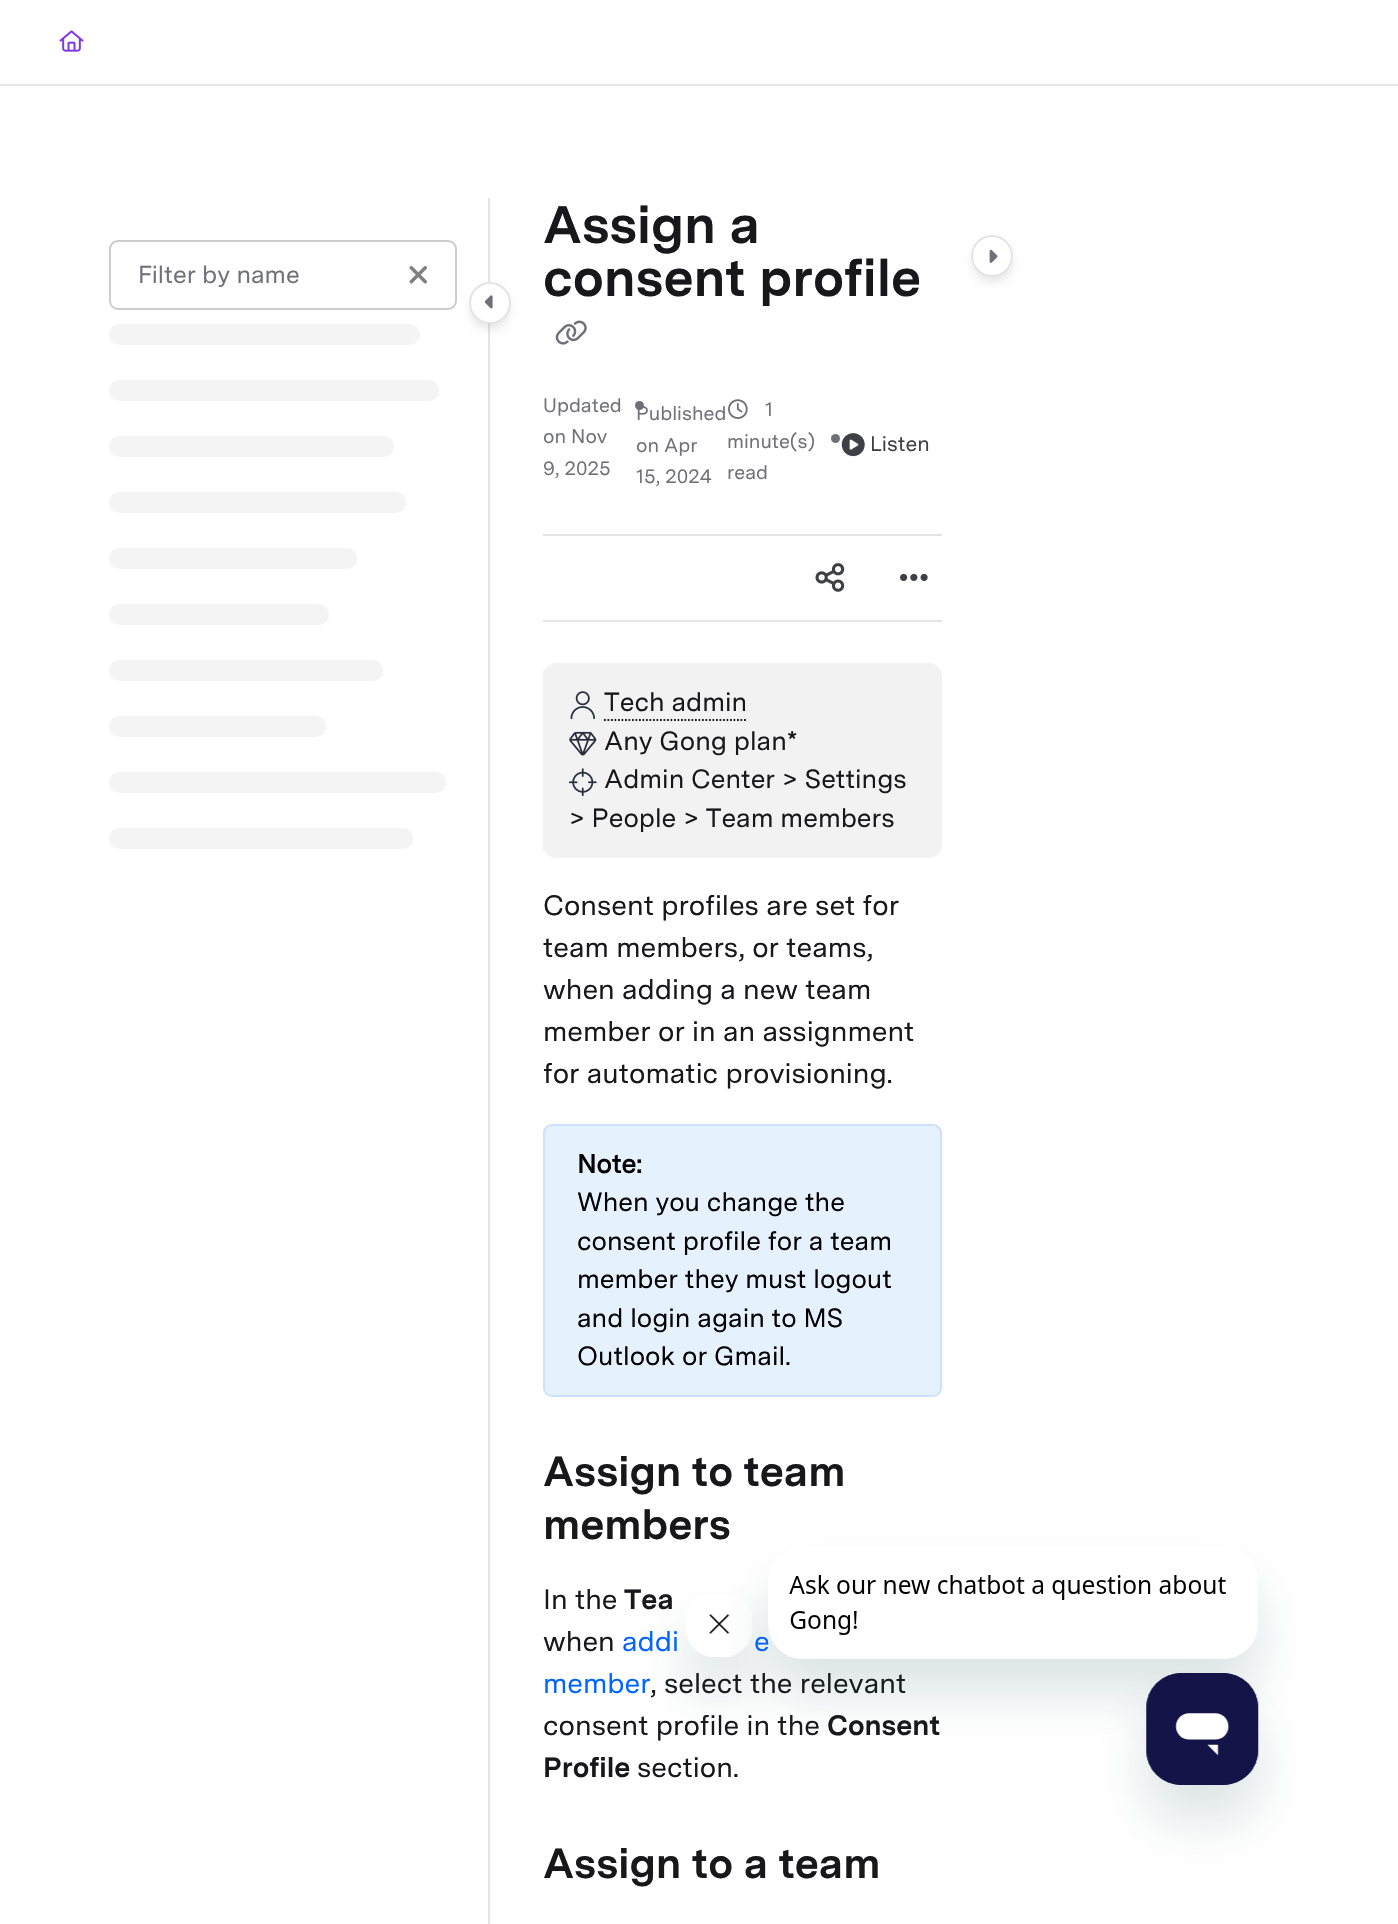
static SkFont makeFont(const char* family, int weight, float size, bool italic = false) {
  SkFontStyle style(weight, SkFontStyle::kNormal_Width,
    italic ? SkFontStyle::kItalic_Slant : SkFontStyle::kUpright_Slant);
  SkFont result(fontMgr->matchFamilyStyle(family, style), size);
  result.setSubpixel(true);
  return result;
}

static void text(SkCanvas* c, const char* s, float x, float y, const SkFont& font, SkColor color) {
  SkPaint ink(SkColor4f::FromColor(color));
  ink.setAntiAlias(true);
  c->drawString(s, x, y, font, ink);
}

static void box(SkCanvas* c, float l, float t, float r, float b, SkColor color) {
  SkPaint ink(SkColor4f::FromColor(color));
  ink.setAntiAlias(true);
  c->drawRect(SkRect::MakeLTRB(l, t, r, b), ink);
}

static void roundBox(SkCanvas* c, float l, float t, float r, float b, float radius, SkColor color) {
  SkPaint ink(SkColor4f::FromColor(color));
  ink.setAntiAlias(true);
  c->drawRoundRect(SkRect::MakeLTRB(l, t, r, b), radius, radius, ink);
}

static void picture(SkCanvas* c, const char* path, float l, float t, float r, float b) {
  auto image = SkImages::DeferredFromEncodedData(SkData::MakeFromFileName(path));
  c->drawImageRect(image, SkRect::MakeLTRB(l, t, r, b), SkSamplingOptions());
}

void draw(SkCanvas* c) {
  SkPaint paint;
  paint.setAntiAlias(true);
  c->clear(0xffffffff);
  box(c, 0, 84, 1398, 86, 0xffe4e4e7);
  picture(c, "img_01.png", 59, 30, 84, 52);
  box(c, 488, 198, 490, 1924, 0xffe4e4e7);
  paint.setStyle(SkPaint::kStroke_Style);
  paint.setStrokeWidth(2);
  paint.setColor(0xffcccccc);
  c->drawRoundRect(SkRect::MakeLTRB(110, 241, 456, 309), 8, 8, paint);
  SkFont face1 = makeFont("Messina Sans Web", 400, 24.5f);
  text(c, "Filter by name", 138, 283, face1, 0xff70707a);
  picture(c, "img_02.png", 409, 266, 427, 284);
  paint.setStyle(SkPaint::kFill_Style);
  paint.setColor(0x1a000000);
  paint.setMaskFilter(SkMaskFilter::MakeBlur(kNormal_SkBlurStyle, 5));
  c->drawRoundRect(SkRect::MakeLTRB(471, 291, 509, 329), 19, 19, paint);
  paint.setMaskFilter(nullptr);
  paint.setColor(0xffffffff);
  c->drawCircle(490, 303, 20, paint);
  paint.setStyle(SkPaint::kStroke_Style);
  paint.setColor(0xffe4e4e7);
  c->drawCircle(490, 303, 20, paint);
  picture(c, "img_03.png", 484, 295, 493, 309);
  roundBox(c, 109, 324, 420, 345, 10.5f, 0xfff4f4f4);
  roundBox(c, 109, 380, 439, 401, 10.5f, 0xfff4f4f4);
  roundBox(c, 109, 436, 394, 457, 10.5f, 0xfff4f4f4);
  roundBox(c, 109, 492, 406, 513, 10.5f, 0xfff4f4f4);
  roundBox(c, 109, 548, 357, 569, 10.5f, 0xfff4f4f4);
  roundBox(c, 109, 604, 329, 625, 10.5f, 0xfff4f4f4);
  roundBox(c, 109, 660, 383, 681, 10.5f, 0xfff4f4f4);
  roundBox(c, 109, 716, 326, 737, 10.5f, 0xfff4f4f4);
  roundBox(c, 109, 772, 446, 793, 10.5f, 0xfff4f4f4);
  roundBox(c, 109, 828, 413, 849, 10.5f, 0xfff4f4f4);
  SkFont face2 = makeFont("Messina Sans Web", 700, 52.5f);
  text(c, "Assign a", 543, 243, face2, 0xff18181b);
  text(c, "consent profile", 543, 296, face2, 0xff18181b);
  picture(c, "img_04.png", 555, 320, 587, 345);
  SkFont face3 = makeFont("Messina Sans Web", 400, 19.5f);
  text(c, "Updated", 543, 412, face3, 0xff70707a);
  text(c, "on Nov", 543, 443, face3, 0xff70707a);
  text(c, "9, 2025", 543, 475, face3, 0xff70707a);
  paint.setStyle(SkPaint::kFill_Style);
  paint.setColor(0xff70707a);
  c->drawCircle(639.5f, 405.5f, 4.5f, paint);
  text(c, "Published", 636, 420, face3, 0xff70707a);
  text(c, "on Apr", 636, 452, face3, 0xff70707a);
  text(c, "15, 2024", 636, 483, face3, 0xff70707a);
  picture(c, "img_05.png", 728, 399, 748, 419);
  text(c, "1", 765, 416, face3, 0xff70707a);
  text(c, "minute(s)", 727, 448, face3, 0xff70707a);
  text(c, "read", 727, 479, face3, 0xff70707a);
  c->drawCircle(835.5f, 438.5f, 4.5f, paint);
  picture(c, "img_06.png", 841, 433, 865, 457);
  SkFont face4 = makeFont("Messina Sans Web", 400, 21);
  text(c, "Listen", 870, 451, face4, 0xff3f3f46);
  box(c, 543, 534, 942, 536, 0xffe4e4e7);
  box(c, 543, 620, 942, 622, 0xffe4e4e7);
  picture(c, "img_07.png", 815, 563, 845, 592);
  picture(c, "img_08.png", 900, 573, 928, 581);
  roundBox(c, 543, 663, 942, 858, 14, 0xfff2f2f2);
  box(c, 543, 670, 545, 851, 0xfff2f2f2);
  picture(c, "img_09.png", 570, 691, 595, 719);
  SkFont face5 = makeFont("Messina Sans Web", 400, 26.25f);
  text(c, "Tech admin", 604, 711, face5, 0xff18181b);
  paint.setStyle(SkPaint::kStroke_Style);
  paint.setStrokeWidth(1.8f);
  paint.setColor(0xff18181b);
  paint.setPathEffect(SkDashPathEffect::Make({{1.75f, 1.75f}}, 0));
  c->drawPath(SkPathBuilder().moveTo(604, 720).lineTo(747, 720).detach(), paint);
  paint.setPathEffect(nullptr);
  picture(c, "img_10.png", 569, 731, 597, 756);
  text(c, "Any Gong plan*", 604, 750, face5, 0xff18181b);
  picture(c, "img_11.png", 569, 768, 597, 796);
  text(c, "Admin Center > Settings", 604, 788, face5, 0xff18181b);
  text(c, "> People > Team members", 569, 827, face5, 0xff18181b);
  SkFont face6 = makeFont("Messina Sans Web", 400, 28);
  text(c, "Consent profiles are set for", 543, 915, face6, 0xff18181b);
  text(c, "team members, or teams,", 543, 957, face6, 0xff18181b);
  text(c, "when adding a new team", 543, 999, face6, 0xff18181b);
  text(c, "member or in an assignment", 543, 1041, face6, 0xff18181b);
  text(c, "for automatic provisioning.", 543, 1083, face6, 0xff18181b);
  paint.setStyle(SkPaint::kFill_Style);
  paint.setColor(0xffe6f1fe);
  c->drawRoundRect(SkRect::MakeLTRB(544, 1125, 941, 1396), 8, 8, paint);
  paint.setStyle(SkPaint::kStroke_Style);
  paint.setStrokeWidth(2);
  paint.setColor(0xffcce1fd);
  c->drawRoundRect(SkRect::MakeLTRB(544, 1125, 941, 1396), 8, 8, paint);
  SkFont face7 = makeFont("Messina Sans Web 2", 700, 26.25f);
  text(c, "Note:", 577, 1173, face7, 0xff000000);
  text(c, "When you change the", 577, 1211, face5, 0xff000000);
  text(c, "consent profile for a team", 577, 1250, face5, 0xff000000);
  text(c, "member they must logout", 577, 1288, face5, 0xff000000);
  text(c, "and login again to MS", 577, 1327, face5, 0xff000000);
  text(c, "Outlook or Gmail.", 577, 1365, face5, 0xff000000);
  SkFont face8 = makeFont("Messina Sans Web", 700, 42);
  text(c, "Assign to team", 543, 1486, face8, 0xff18181b);
  text(c, "members", 543, 1539, face8, 0xff18181b);
  text(c, "In the", 543, 1609, face6, 0xff18181b);
  SkFont face9 = makeFont("Messina Sans Web", 700, 28);
  text(c, "Tea", 624, 1609, face9, 0xff18181b);
  text(c, "when", 543, 1651, face6, 0xff18181b);
  text(c, "addi", 622, 1651, face6, 0xff0065ff);
  text(c, "e", 754, 1651, face6, 0xff0065ff);
  text(c, "member", 543, 1693, face6, 0xff0065ff);
  text(c, ", select the relevant", 650, 1693, face6, 0xff18181b);
  text(c, "consent profile in the", 543, 1735, face6, 0xff18181b);
  text(c, "Consent", 827, 1735, face9, 0xff18181b);
  text(c, "Profile", 543, 1777, face9, 0xff18181b);
  text(c, "section.", 637, 1777, face6, 0xff18181b);
  text(c, "Assign to a team", 543, 1878, face8, 0xff18181b);
  paint.setStyle(SkPaint::kFill_Style);
  paint.setColor(0x1a000000);
  paint.setMaskFilter(SkMaskFilter::MakeBlur(kNormal_SkBlurStyle, 5));
  c->drawRoundRect(SkRect::MakeLTRB(973, 243, 1012, 282), 19.5f, 19.5f, paint);
  paint.setMaskFilter(nullptr);
  paint.setColor(0xffffffff);
  c->drawCircle(992, 256, 20, paint);
  paint.setStyle(SkPaint::kStroke_Style);
  paint.setColor(0xffe4e4e7);
  c->drawCircle(992, 256, 20, paint);
  picture(c, "img_12.png", 989, 249, 998, 263);
  paint.setStyle(SkPaint::kFill_Style);
  paint.setColor(0x2617494d);
  paint.setMaskFilter(SkMaskFilter::MakeBlur(kNormal_SkBlurStyle, 26));
  c->drawRoundRect(SkRect::MakeLTRB(684, 1624, 754, 1694), 35, 35, paint);
  paint.setMaskFilter(nullptr);
  picture(c, "img_14.png", 686, 1594, 752, 1657);
  c->save();
  c->clipPath(SkPathBuilder(SkPathFillType::kEvenOdd).moveTo(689, 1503).lineTo(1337, 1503).lineTo(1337, 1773).lineTo(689, 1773).close().moveTo(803, 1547).lineTo(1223, 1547).cubicTo(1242.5f, 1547, 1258, 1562.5f, 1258, 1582).lineTo(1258, 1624).cubicTo(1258, 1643.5f, 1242.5f, 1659, 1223, 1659).lineTo(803, 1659).cubicTo(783.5f, 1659, 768, 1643.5f, 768, 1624).lineTo(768, 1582).cubicTo(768, 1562.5f, 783.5f, 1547, 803, 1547).close().detach(), true);
  paint.setMaskFilter(SkMaskFilter::MakeBlur(kNormal_SkBlurStyle, 26));
  c->drawRoundRect(SkRect::MakeLTRB(768, 1582, 1258, 1694), 35, 35, paint);
  paint.setMaskFilter(nullptr);
  c->restore();
  picture(c, "img_13.png", 768, 1575, 1226, 1657);
  paint.setMaskFilter(SkMaskFilter::MakeBlur(kNormal_SkBlurStyle, 26));
  c->drawRoundRect(SkRect::MakeLTRB(1146, 1708, 1258, 1820), 35, 35, paint);
  paint.setMaskFilter(nullptr);
  picture(c, "img_15.png", 1146, 1673, 1259, 1785);
}
